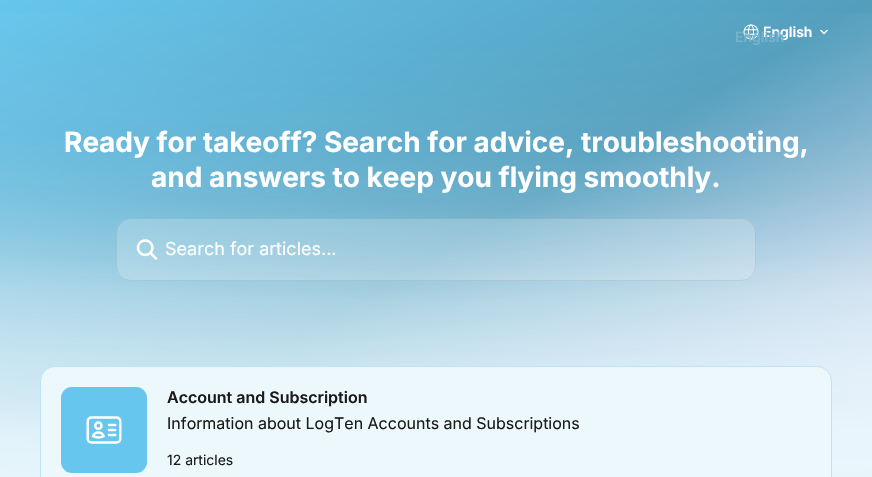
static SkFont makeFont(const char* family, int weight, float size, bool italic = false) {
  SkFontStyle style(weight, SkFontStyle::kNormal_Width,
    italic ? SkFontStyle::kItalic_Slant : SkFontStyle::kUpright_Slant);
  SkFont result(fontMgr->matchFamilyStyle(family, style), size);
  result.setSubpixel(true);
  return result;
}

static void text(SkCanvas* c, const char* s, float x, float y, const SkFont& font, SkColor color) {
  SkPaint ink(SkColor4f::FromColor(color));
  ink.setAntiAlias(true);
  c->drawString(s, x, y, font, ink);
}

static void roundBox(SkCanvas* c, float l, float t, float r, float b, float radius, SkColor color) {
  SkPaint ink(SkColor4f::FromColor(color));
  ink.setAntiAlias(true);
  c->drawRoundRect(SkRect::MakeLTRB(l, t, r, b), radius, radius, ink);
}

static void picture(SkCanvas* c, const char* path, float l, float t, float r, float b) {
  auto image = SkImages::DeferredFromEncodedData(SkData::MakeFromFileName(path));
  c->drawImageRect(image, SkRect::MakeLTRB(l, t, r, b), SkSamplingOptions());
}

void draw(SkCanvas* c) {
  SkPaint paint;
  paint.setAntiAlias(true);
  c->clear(0xffffffff);
  {
    const SkColor colors[] = {0xff67c6ed, 0xff529ebd, 0xfff8e8fc};
    const float stops[] = {0, 0.5f, 1};
    const SkPoint ends[] = {{214, -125}, {658, 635}};
    paint.setShader(SkGradientShader::MakeLinear(ends, colors, stops, 3, SkTileMode::kClamp));
    paint.setAlpha(255);
  }
  c->drawRect(SkRect::MakeLTRB(0, 0, 872, 477), paint);
  {
    const SkColor colors[] = {0x00e8f6fc, 0x03e8f6fc, 0x0ae8f6fc, 0x12e8f6fc, 0x1fe8f6fc, 0x2ee8f6fc, 0x40e8f6fc, 0x54e8f6fc, 0x69e8f6fc, 0x7de8f6fc, 0x94e8f6fc, 0xabe8f6fc, 0xc2e8f6fc, 0xd6e8f6fc, 0xf5e8f6fc, 0xffe8f6fc};
    const float stops[] = {0, 0.12f, 0.21f, 0.29f, 0.35f, 0.4f, 0.44f, 0.48f, 0.52f, 0.55f, 0.59f, 0.65f, 0.71f, 0.79f, 0.88f, 1};
    SkMatrix m = SkMatrix::Translate(436, 0).preScale(2907, 510);
    paint.setShader(SkGradientShader::MakeRadial({0, 0}, 1, colors, stops, 16, SkTileMode::kClamp, 0, &m));
    paint.setAlpha(255);
  }
  c->drawRect(SkRect::MakeLTRB(0, 13, 872, 477), paint);
  picture(c, "img_01.png", 743, 24, 759, 40);
  SkFont face1 = makeFont("Inter", 600, 14);
  text(c, "English", 763, 37, face1, 0xffffffff);
  text(c, "English", 735, 42, face1, 0xff76b3cc);
  paint.setStyle(SkPaint::kStroke_Style);
  paint.setStrokeWidth(1.5f);
  paint.setStrokeCap(SkPaint::kRound_Cap);
  paint.setStrokeJoin(SkPaint::kRound_Join);
  paint.setShader(nullptr);
  paint.setColor(0xffffffff);
  c->drawPath(SkPathBuilder().moveTo(821, 30.5f).lineTo(824, 33.5f).lineTo(827, 30.5f).detach(), paint);
  SkFont face2 = makeFont("Inter", 700, 28);
  text(c, "Ready for takeoff? Search for advice, troubleshooting,", 64, 152, face2, 0xffffffff);
  text(c, "and answers to keep you flying smoothly.", 151, 187, face2, 0xffffffff);
  roundBox(c, 116, 218, 756, 281, 15, 0x33ffffff);
  paint.setStrokeWidth(1);
  paint.setStrokeCap(SkPaint::kButt_Cap);
  paint.setStrokeJoin(SkPaint::kMiter_Join);
  paint.setColor(0x14000000);
  c->drawRoundRect(SkRect::MakeLTRB(116.5f, 218.5f, 755.5f, 280.5f), 14.5f, 14.5f, paint);
  picture(c, "img_02.png", 136, 239, 158, 260);
  SkFont face3 = makeFont("Inter", 400, 18);
  text(c, "Search for articles...", 165, 255, face3, 0xffffffff);
  paint.setStyle(SkPaint::kFill_Style);
  paint.setColor(0xffedf8fd);
  c->drawRoundRect(SkRect::MakeLTRB(40.5f, 366.5f, 831.5f, 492.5f), 14.5f, 14.5f, paint);
  paint.setStyle(SkPaint::kStroke_Style);
  paint.setColor(0xffbbe4f6);
  c->drawRoundRect(SkRect::MakeLTRB(40.5f, 366.5f, 831.5f, 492.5f), 14.5f, 14.5f, paint);
  roundBox(c, 61, 387, 147, 473, 11, 0xff67c6ed);
  picture(c, "img_03.png", 86, 416, 122, 444);
  SkFont face4 = makeFont("Inter", 600, 16);
  text(c, "Account and Subscription", 167, 403, face4, 0xff1a1a1a);
  SkFont face5 = makeFont("Inter", 400, 16);
  text(c, "Information about LogTen Accounts and Subscriptions", 167, 429, face5, 0xff1a1a1a);
  SkFont face6 = makeFont("Inter", 400, 14);
  text(c, "12 articles", 167, 465, face6, 0xff1a1a1a);
}
